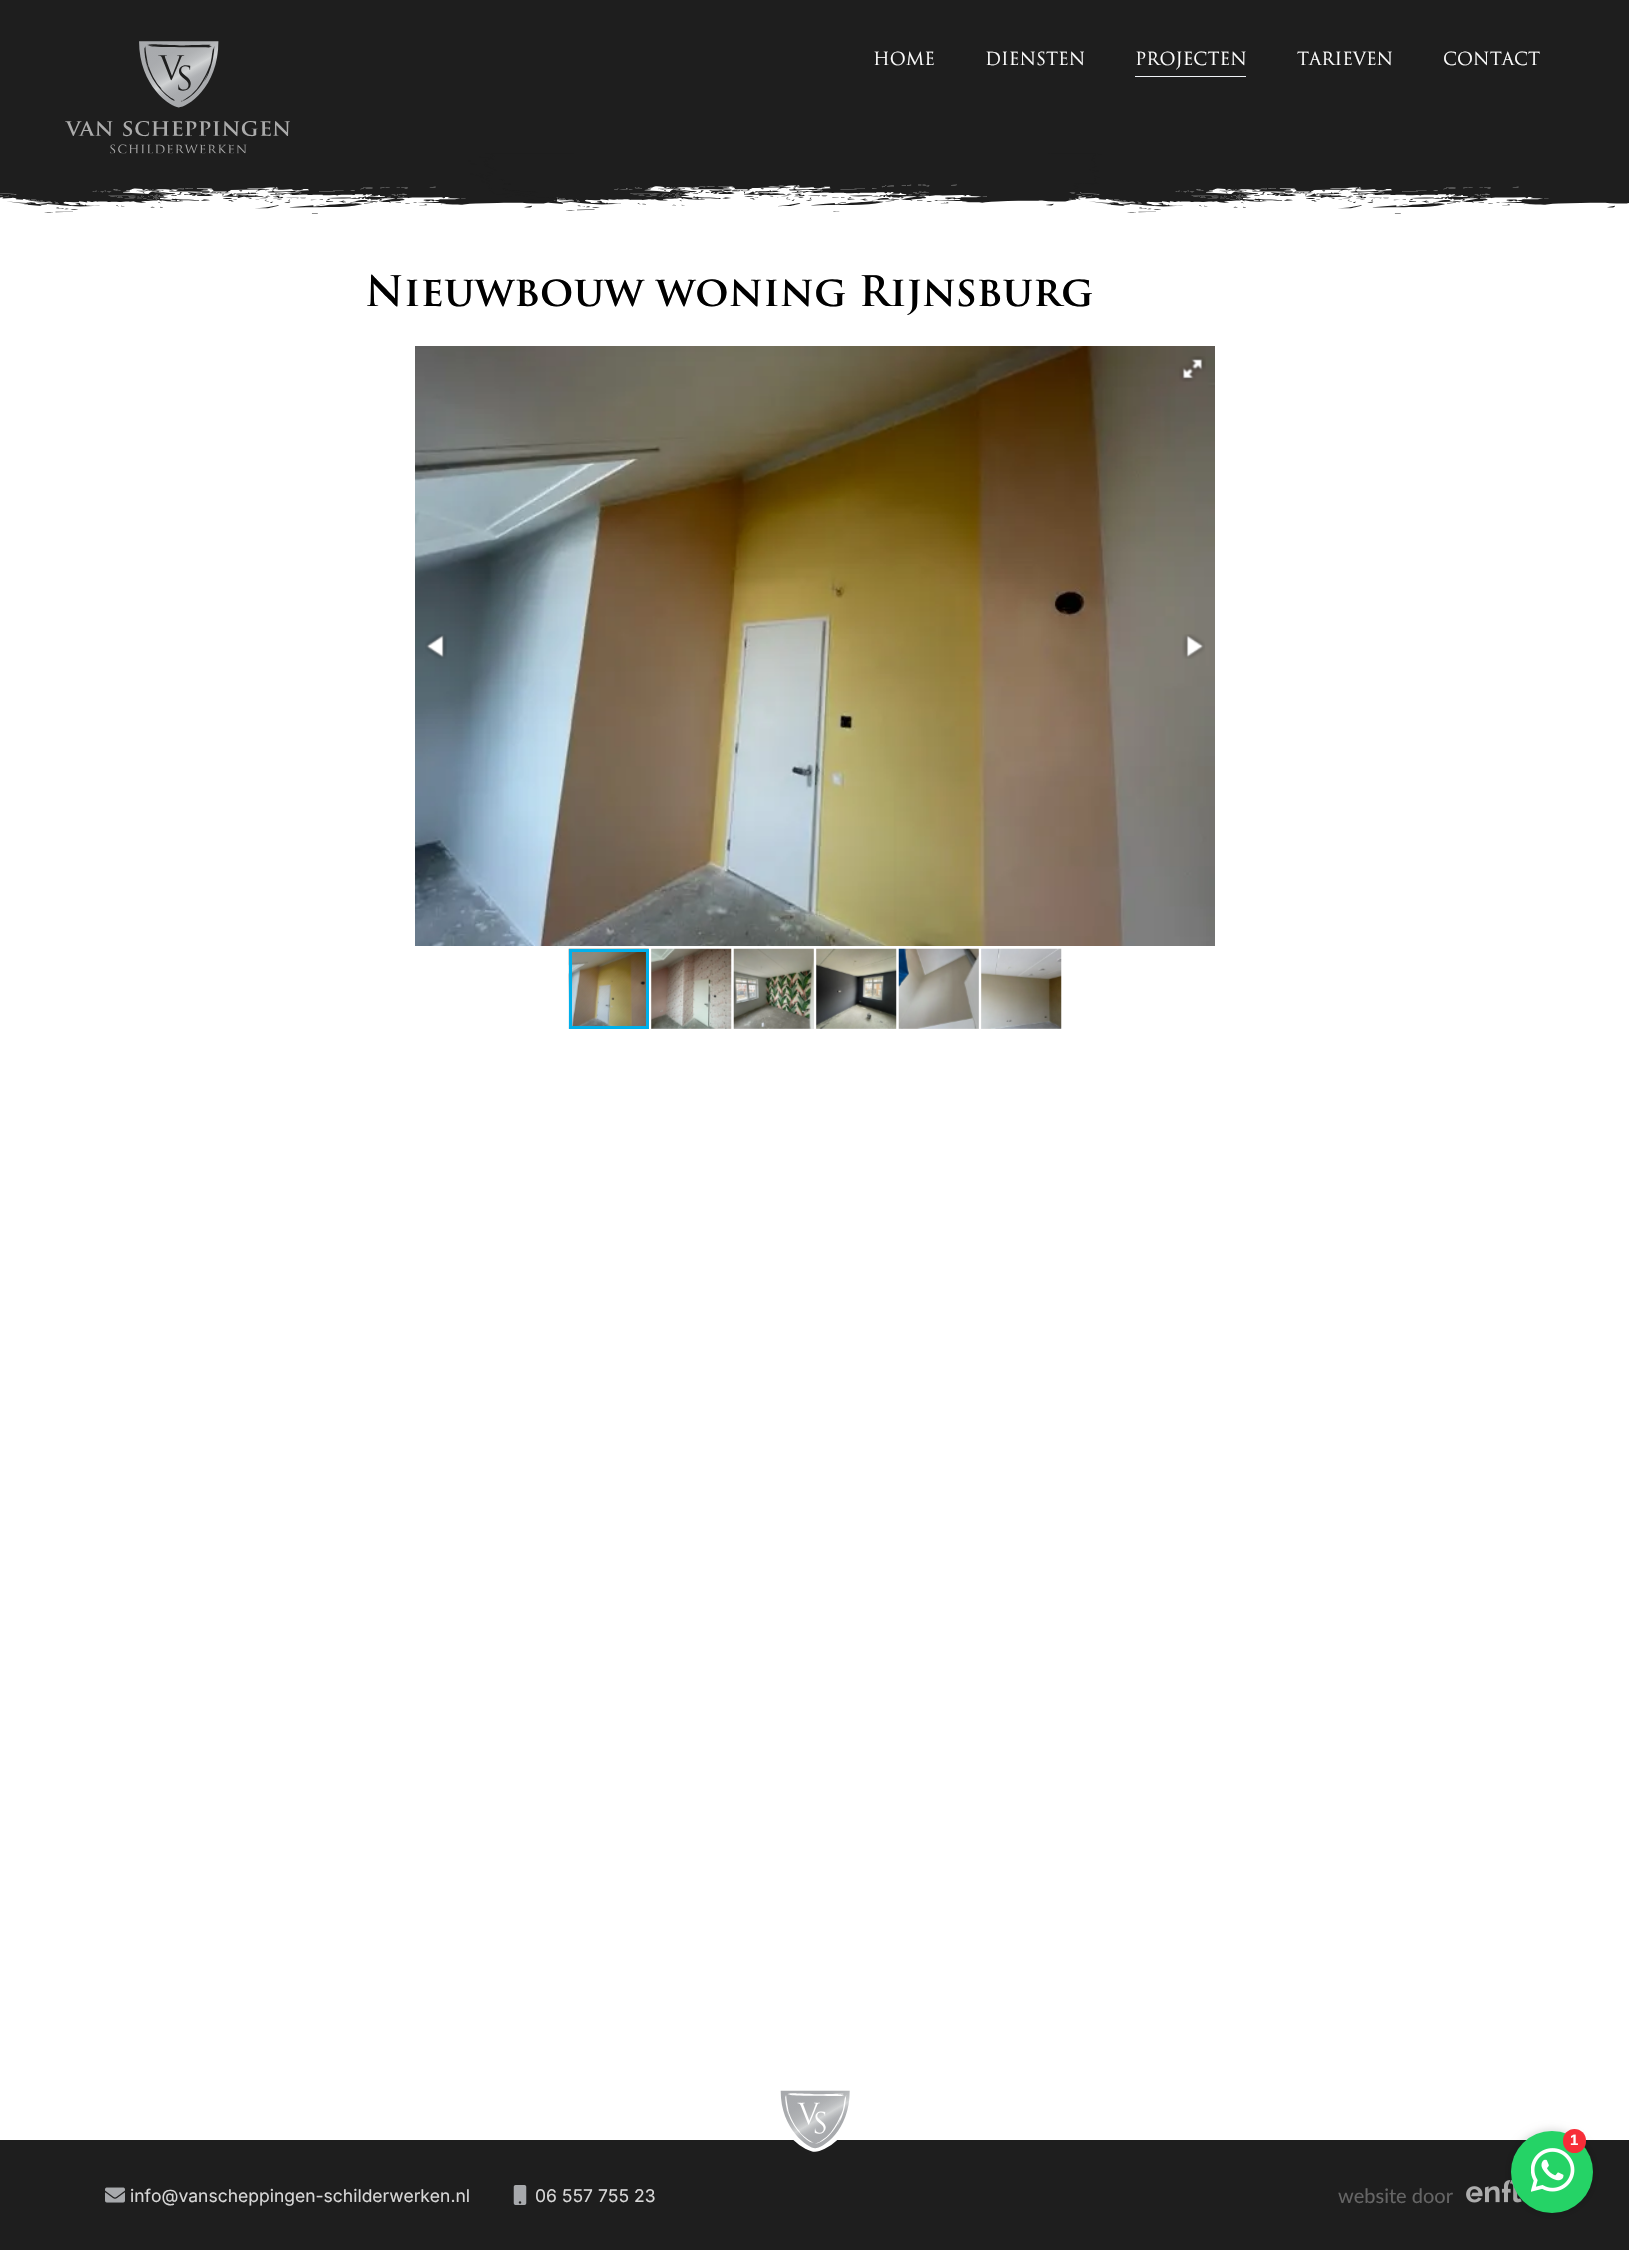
static SkFont makeFont(const char* family, int weight, float size, bool italic = false) {
  SkFontStyle style(weight, SkFontStyle::kNormal_Width,
    italic ? SkFontStyle::kItalic_Slant : SkFontStyle::kUpright_Slant);
  SkFont result(fontMgr->matchFamilyStyle(family, style), size);
  result.setSubpixel(true);
  return result;
}

static void text(SkCanvas* c, const char* s, float x, float y, const SkFont& font, SkColor color) {
  SkPaint ink(SkColor4f::FromColor(color));
  ink.setAntiAlias(true);
  c->drawString(s, x, y, font, ink);
}

static void box(SkCanvas* c, float l, float t, float r, float b, SkColor color) {
  SkPaint ink(SkColor4f::FromColor(color));
  ink.setAntiAlias(true);
  c->drawRect(SkRect::MakeLTRB(l, t, r, b), ink);
}

static void roundBox(SkCanvas* c, float l, float t, float r, float b, float radius, SkColor color) {
  SkPaint ink(SkColor4f::FromColor(color));
  ink.setAntiAlias(true);
  c->drawRoundRect(SkRect::MakeLTRB(l, t, r, b), radius, radius, ink);
}

static void picture(SkCanvas* c, const char* path, float l, float t, float r, float b) {
  auto image = SkImages::DeferredFromEncodedData(SkData::MakeFromFileName(path));
  c->drawImageRect(image, SkRect::MakeLTRB(l, t, r, b), SkSamplingOptions());
}

void draw(SkCanvas* c) {
  SkPaint paint;
  paint.setAntiAlias(true);
  c->clear(0xffffffff);
  box(c, 0, 0, 1629, 154, 0xff1e1e1e);
  picture(c, "img_01.png", 65, 41, 290, 154);
  SkFont face1 = makeFont("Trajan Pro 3", 400, 17.5f);
  text(c, "HOME", 873, 65, face1, 0xffffffff);
  text(c, "DIENSTEN", 985, 65, face1, 0xffffffff);
  text(c, "PROJECTEN", 1135, 65, face1, 0xffffffff);
  box(c, 1135, 76, 1246, 77, 0xffeff2f6);
  text(c, "TARIEVEN", 1297, 65, face1, 0xffffffff);
  text(c, "CONTACT", 1443, 65, face1, 0xffffffff);
  picture(c, "img_02.png", 0, 153, 1629, 214);
  SkFont face2 = makeFont("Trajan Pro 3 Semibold", 600, 41);
  text(c, "Nieuwbouw woning Rijnsburg", 365, 306, face2, 0xff000000);
  picture(c, "img_03.png", 415, 346, 1215, 946);
  picture(c, "img_04.png", 1179, 356, 1206, 382);
  picture(c, "img_05.png", 425, 634, 447, 659);
  picture(c, "img_06.png", 1182, 634, 1205, 659);
  picture(c, "img_07.png", 568, 948, 649, 1029);
  box(c, 651, 949, 731, 1029, 0xffe6e6e6);
  picture(c, "img_08.png", 651, 948, 732, 1029);
  box(c, 734, 949, 814, 1029, 0xffe6e6e6);
  picture(c, "img_09.png", 733, 948, 814, 1029);
  box(c, 816, 949, 896, 1029, 0xffe6e6e6);
  picture(c, "img_10.png", 816, 948, 897, 1029);
  box(c, 899, 949, 979, 1029, 0xffe6e6e6);
  picture(c, "img_11.png", 898, 948, 979, 1029);
  box(c, 981, 949, 1061, 1029, 0xffe6e6e6);
  picture(c, "img_12.png", 981, 948, 1062, 1029);
  paint.setStyle(SkPaint::kStroke_Style);
  paint.setStrokeWidth(3);
  paint.setColor(0xff00b0eb);
  c->drawRect(SkRect::MakeLTRB(570.5f, 950.5f, 647.5f, 1027.5f), paint);
  box(c, 0, 2140, 1629, 2250, 0xff1e1e1e);
  picture(c, "img_17.png", 1466, 2180, 1522, 2203);
  paint.setStyle(SkPaint::kFill_Style);
  paint.setColor(0x33000000);
  paint.setMaskFilter(SkMaskFilter::MakeBlur(kNormal_SkBlurStyle, 5));
  c->drawRoundRect(SkRect::MakeLTRB(1511, 2131, 1593, 2213), 41, 41, paint);
  paint.setMaskFilter(nullptr);
  paint.setColor(0xff25d366);
  c->drawCircle(1552, 2172, 41, paint);
  picture(c, "img_13.png", 1531, 2148, 1575, 2192);
  roundBox(c, 1563, 2129, 1586, 2153, 11.5f, 0xfff72e38);
  SkFont face3 = makeFont("Liberation Sans", 700, 15);
  text(c, "1", 1570, 2145, face3, 0xffffffff);
  picture(c, "img_14.png", 780, 2090, 850, 2152);
  picture(c, "img_15.png", 105, 2187, 125, 2203);
  SkFont face4 = makeFont("Inter", 400, 17.5f);
  text(c, "info@vanscheppingen-schilderwerken.nl", 130, 2202, face4, 0xffd7d7d7);
  picture(c, "img_16.png", 513, 2185, 527, 2205);
  text(c, "06 557 755 23", 535, 2202, face4, 0xffd7d7d7);
  SkFont face5 = makeFont("Lato", 400, 20);
  text(c, "website door", 1338, 2203, face5, 0xff656565);
}
